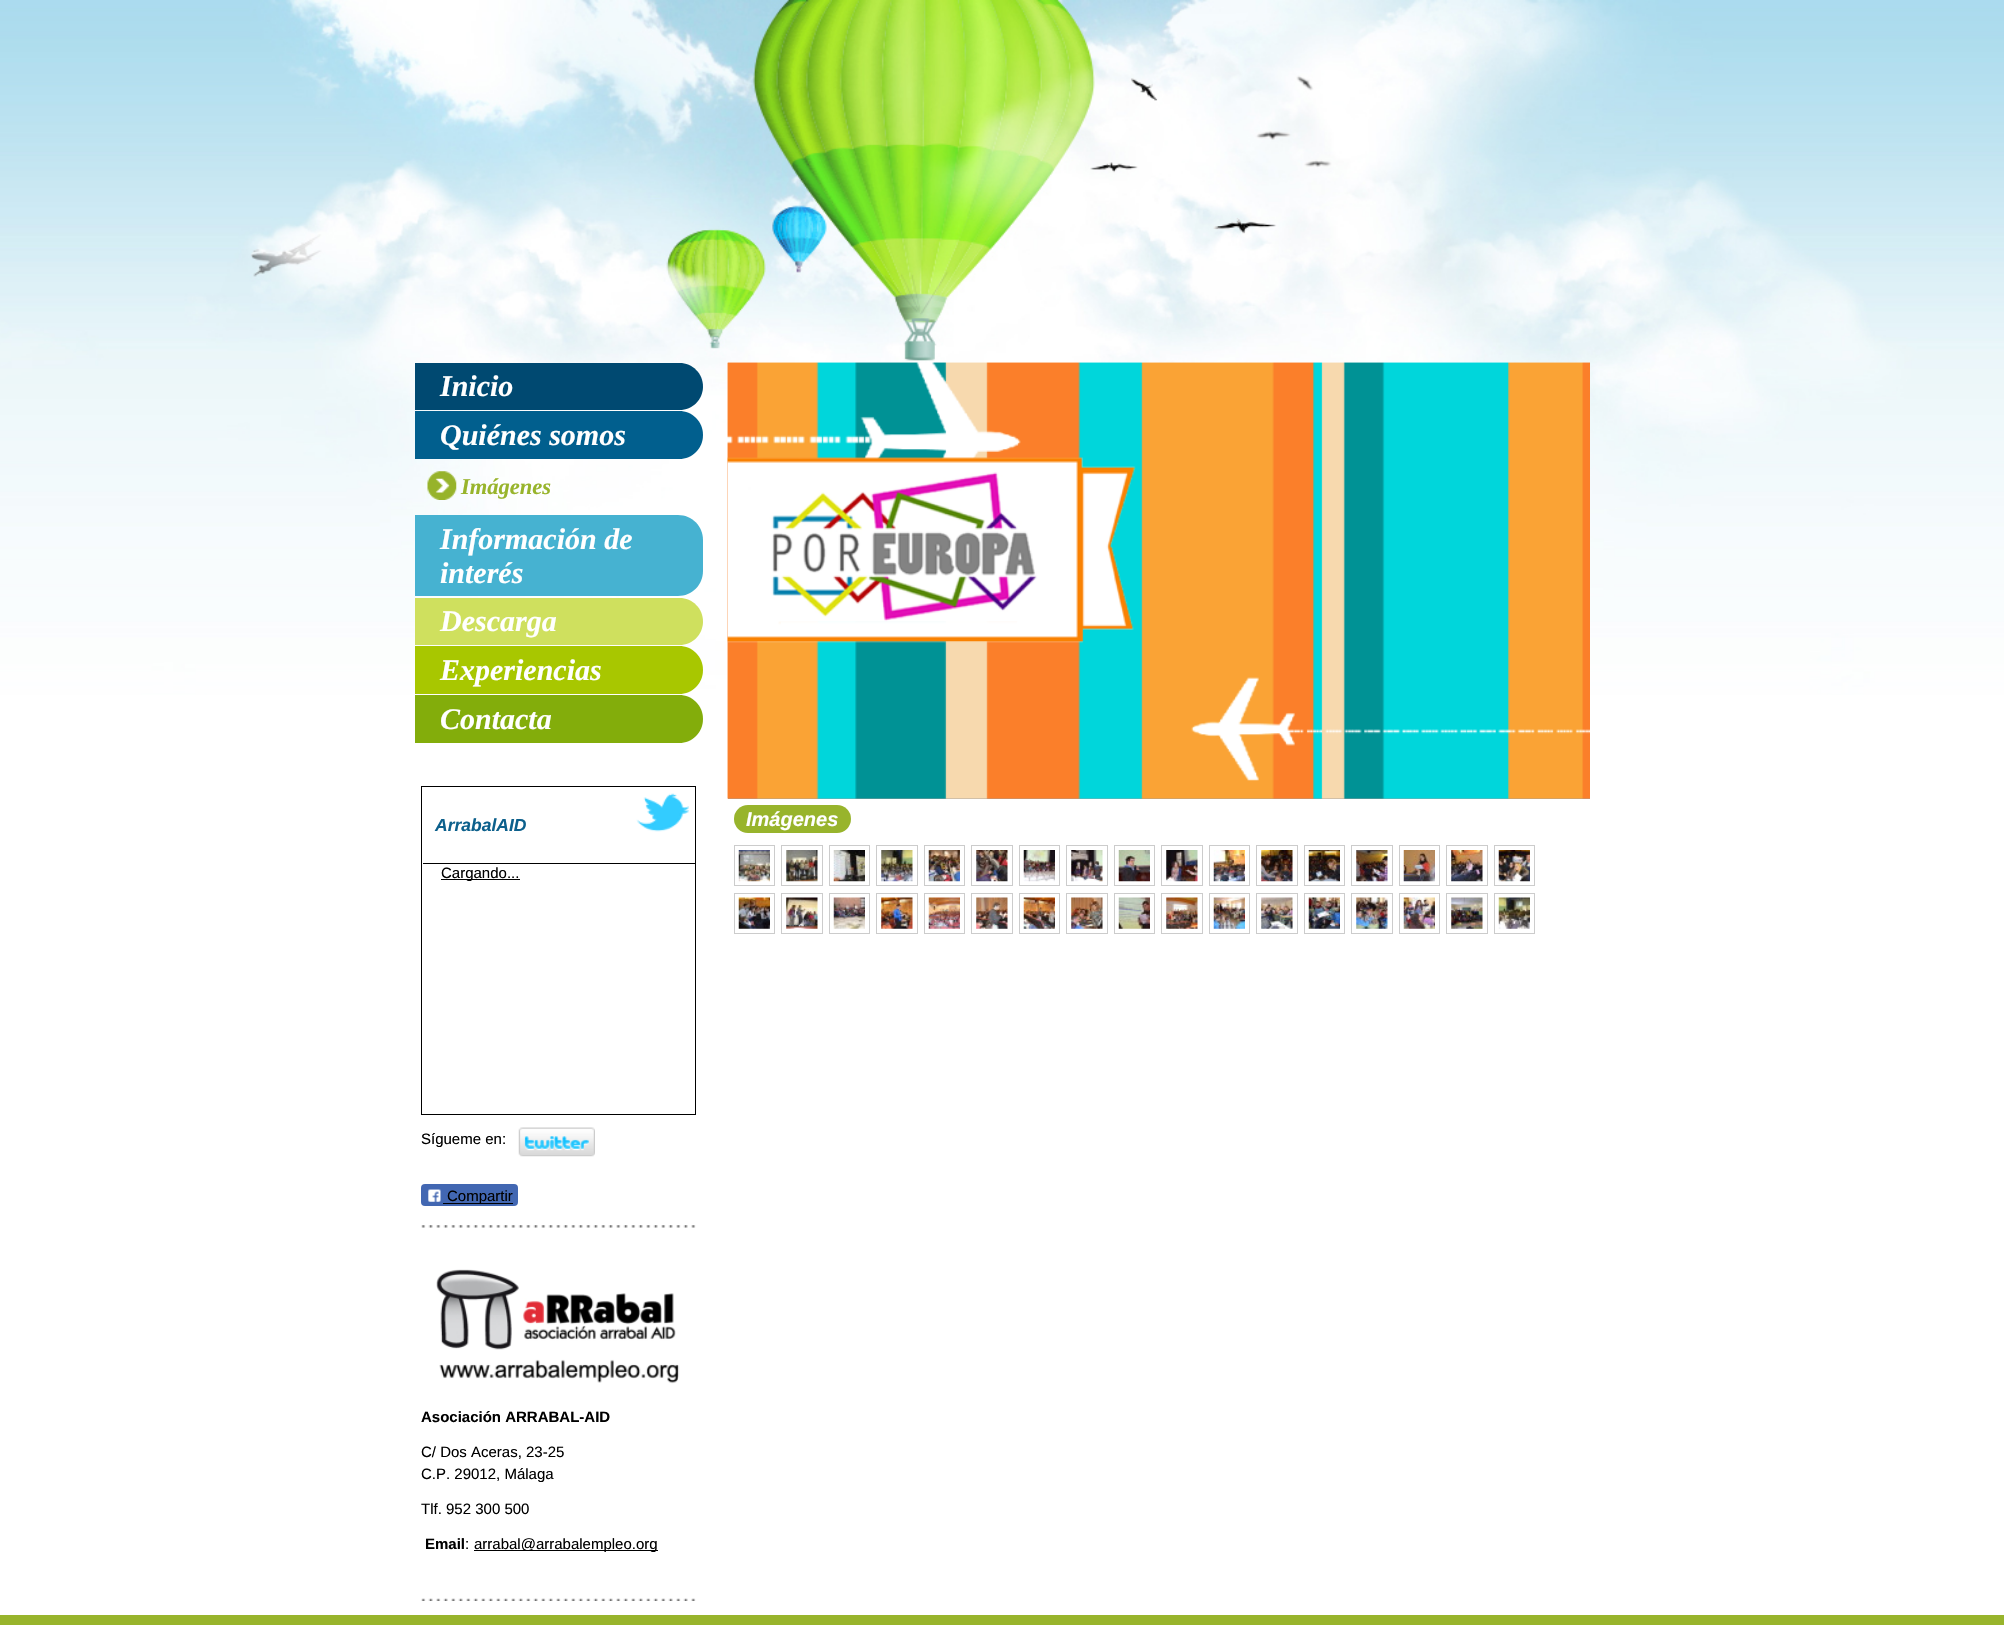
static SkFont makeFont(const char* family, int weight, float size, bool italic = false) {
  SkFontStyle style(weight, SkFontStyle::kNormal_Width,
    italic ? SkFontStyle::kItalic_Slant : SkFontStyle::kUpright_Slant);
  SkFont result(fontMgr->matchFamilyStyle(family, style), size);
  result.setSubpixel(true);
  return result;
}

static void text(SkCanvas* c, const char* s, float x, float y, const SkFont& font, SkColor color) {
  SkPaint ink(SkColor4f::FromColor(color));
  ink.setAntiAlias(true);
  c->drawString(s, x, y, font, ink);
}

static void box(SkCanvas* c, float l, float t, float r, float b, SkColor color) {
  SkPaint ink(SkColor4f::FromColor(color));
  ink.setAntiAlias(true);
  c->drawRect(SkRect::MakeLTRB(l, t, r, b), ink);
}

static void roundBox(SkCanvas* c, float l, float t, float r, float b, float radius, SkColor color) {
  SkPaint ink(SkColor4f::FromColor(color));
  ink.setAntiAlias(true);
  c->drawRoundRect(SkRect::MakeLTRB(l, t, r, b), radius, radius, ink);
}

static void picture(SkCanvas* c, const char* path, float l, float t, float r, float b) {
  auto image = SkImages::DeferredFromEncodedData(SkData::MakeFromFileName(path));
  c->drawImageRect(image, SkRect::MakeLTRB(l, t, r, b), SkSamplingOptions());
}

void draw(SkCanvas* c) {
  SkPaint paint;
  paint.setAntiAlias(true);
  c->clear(0xffffffff);
  picture(c, "img_01.png", 0, 0, 2004, 695);
  paint.setColor(0xff004971);
  c->drawPath(SkPathBuilder().moveTo(415, 363).lineTo(679.5f, 363).cubicTo(692.5f, 363, 703, 373.5f, 703, 386.5f).cubicTo(703, 399.5f, 692.5f, 410, 679.5f, 410).lineTo(415, 410).close().detach(), paint);
  SkFont face1 = makeFont("Liberation Serif", 700, 30, true);
  text(c, "Inicio", 440, 396, face1, 0xffffffff);
  paint.setColor(0xff015f8e);
  c->drawPath(SkPathBuilder().moveTo(415, 411).lineTo(679, 411).cubicTo(692.5f, 411, 703, 421.5f, 703, 435).cubicTo(703, 448.5f, 692.5f, 459, 679, 459).lineTo(415, 459).close().detach(), paint);
  text(c, "Quiénes somos", 440, 445, face1, 0xffffffff);
  picture(c, "img_02.png", 427, 471, 457, 500);
  SkFont face2 = makeFont("Liberation Serif", 700, 22.5f, true);
  text(c, "Imágenes", 461, 494, face2, 0xff98b42c);
  paint.setColor(0xff46b2d1);
  c->drawPath(SkPathBuilder().moveTo(415, 515).lineTo(678, 515).cubicTo(692, 515, 703, 526, 703, 540).lineTo(703, 571).cubicTo(703, 585, 692, 596, 678, 596).lineTo(415, 596).close().detach(), paint);
  text(c, "Información de", 440, 549, face1, 0xffffffff);
  text(c, "interés", 440, 583, face1, 0xffffffff);
  paint.setColor(0xffcfe05e);
  c->drawPath(SkPathBuilder().moveTo(415, 598).lineTo(679.5f, 598).cubicTo(692.5f, 598, 703, 608.5f, 703, 621.5f).cubicTo(703, 634.5f, 692.5f, 645, 679.5f, 645).lineTo(415, 645).close().detach(), paint);
  text(c, "Descarga", 440, 631, face1, 0xffffffff);
  paint.setColor(0xffa8c700);
  c->drawPath(SkPathBuilder().moveTo(415, 646).lineTo(679, 646).cubicTo(692.5f, 646, 703, 656.5f, 703, 670).cubicTo(703, 683.5f, 692.5f, 694, 679, 694).lineTo(415, 694).close().detach(), paint);
  text(c, "Experiencias", 440, 680, face1, 0xffffffff);
  paint.setColor(0xff83ad0b);
  c->drawPath(SkPathBuilder().moveTo(415, 695).lineTo(679, 695).cubicTo(692.5f, 695, 703, 705.5f, 703, 719).cubicTo(703, 732.5f, 692.5f, 743, 679, 743).lineTo(415, 743).close().detach(), paint);
  text(c, "Contacta", 440, 729, face1, 0xffffffff);
  paint.setStyle(SkPaint::kStroke_Style);
  paint.setStrokeWidth(1);
  paint.setColor(0xff000000);
  c->drawRect(SkRect::MakeLTRB(421.5f, 786.5f, 695.5f, 1114.5f), paint);
  SkFont face3 = makeFont("Liberation Sans", 700, 17.5f, true);
  text(c, "ArrabalAID", 435, 831, face3, 0xff0c608c);
  picture(c, "img_03.png", 636, 793, 689, 832);
  box(c, 423, 863, 695, 864, 0xff000000);
  box(c, 441, 879, 520, 880, 0xff000000);
  SkFont face4 = makeFont("Liberation Sans", 400, 15);
  text(c, "Cargando...", 441, 878, face4, 0xff000000);
  text(c, "Sígueme en:", 421, 1144, face4, 0xff000000);
  picture(c, "img_04.png", 518, 1127, 595, 1157);
  roundBox(c, 421, 1184, 518, 1206, 4, 0xff4267b2);
  picture(c, "img_05.png", 428, 1189, 441, 1202);
  box(c, 443, 1203, 513, 1204, 0xff000000);
  text(c, "Compartir", 447, 1201, face4, 0xff000000);
  picture(c, "img_06.png", 421, 1225, 696, 1228);
  picture(c, "img_07.png", 436, 1269, 680, 1384);
  SkFont face5 = makeFont("Liberation Sans", 700, 15);
  text(c, "Asociación ARRABAL-AID", 421, 1422, face5, 0xff000000);
  text(c, "C/ Dos Aceras, 23-25", 421, 1457, face4, 0xff000000);
  text(c, "C.P. 29012, Málaga", 421, 1479, face4, 0xff000000);
  text(c, "Tlf. 952 300 500", 421, 1514, face4, 0xff000000);
  text(c, "Email", 425, 1549, face5, 0xff000000);
  text(c, ":", 465, 1549, face4, 0xff000000);
  box(c, 474, 1550, 658, 1551, 0xff000000);
  text(c, "arrabal@arrabalempleo.org", 474, 1549, face4, 0xff000000);
  picture(c, "img_08.png", 421, 1598, 696, 1601);
  picture(c, "img_09.png", 727, 362, 1590, 799);
  box(c, 728, 798, 1590, 799, 0xffa0a0a0);
  picture(c, "img_10.png", 727, 362, 1590, 799);
  picture(c, "img_11.png", 727, 457, 1136, 643);
  roundBox(c, 734, 805, 851, 833, 14, 0xff98b42c);
  SkFont face6 = makeFont("Liberation Sans", 700, 20, true);
  text(c, "Imágenes", 746, 826, face6, 0xffffffff);
  paint.setColor(0xffcccccc);
  c->drawRect(SkRect::MakeLTRB(734.5f, 845.5f, 774.5f, 885.5f), paint);
  picture(c, "img_12.png", 738, 850, 770, 882);
  c->drawRect(SkRect::MakeLTRB(781.5f, 845.5f, 822.5f, 885.5f), paint);
  picture(c, "img_13.png", 786, 850, 818, 882);
  c->drawRect(SkRect::MakeLTRB(829.5f, 845.5f, 869.5f, 885.5f), paint);
  picture(c, "img_14.png", 833, 850, 865, 882);
  c->drawRect(SkRect::MakeLTRB(876.5f, 845.5f, 917.5f, 885.5f), paint);
  picture(c, "img_15.png", 881, 850, 913, 882);
  c->drawRect(SkRect::MakeLTRB(924.5f, 845.5f, 964.5f, 885.5f), paint);
  picture(c, "img_16.png", 928, 850, 960, 882);
  c->drawRect(SkRect::MakeLTRB(971.5f, 845.5f, 1012.5f, 885.5f), paint);
  picture(c, "img_17.png", 976, 850, 1008, 882);
  c->drawRect(SkRect::MakeLTRB(1019.5f, 845.5f, 1059.5f, 885.5f), paint);
  picture(c, "img_18.png", 1023, 850, 1055, 882);
  c->drawRect(SkRect::MakeLTRB(1066.5f, 845.5f, 1107.5f, 885.5f), paint);
  picture(c, "img_19.png", 1071, 850, 1103, 882);
  c->drawRect(SkRect::MakeLTRB(1114.5f, 845.5f, 1154.5f, 885.5f), paint);
  picture(c, "img_20.png", 1118, 850, 1150, 882);
  c->drawRect(SkRect::MakeLTRB(1161.5f, 845.5f, 1202.5f, 885.5f), paint);
  picture(c, "img_21.png", 1166, 850, 1198, 882);
  c->drawRect(SkRect::MakeLTRB(1209.5f, 845.5f, 1249.5f, 885.5f), paint);
  picture(c, "img_22.png", 1213, 850, 1245, 882);
  c->drawRect(SkRect::MakeLTRB(1256.5f, 845.5f, 1297.5f, 885.5f), paint);
  picture(c, "img_23.png", 1261, 850, 1293, 882);
  c->drawRect(SkRect::MakeLTRB(1304.5f, 845.5f, 1344.5f, 885.5f), paint);
  picture(c, "img_24.png", 1308, 850, 1340, 882);
  c->drawRect(SkRect::MakeLTRB(1351.5f, 845.5f, 1392.5f, 885.5f), paint);
  picture(c, "img_25.png", 1356, 850, 1388, 882);
  c->drawRect(SkRect::MakeLTRB(1399.5f, 845.5f, 1439.5f, 885.5f), paint);
  picture(c, "img_26.png", 1403, 850, 1435, 882);
  c->drawRect(SkRect::MakeLTRB(1446.5f, 845.5f, 1487.5f, 885.5f), paint);
  picture(c, "img_27.png", 1451, 850, 1483, 882);
  c->drawRect(SkRect::MakeLTRB(1494.5f, 845.5f, 1534.5f, 885.5f), paint);
  picture(c, "img_28.png", 1498, 850, 1530, 882);
  c->drawRect(SkRect::MakeLTRB(734.5f, 893.5f, 774.5f, 933.5f), paint);
  picture(c, "img_29.png", 738, 897, 770, 929);
  c->drawRect(SkRect::MakeLTRB(781.5f, 893.5f, 822.5f, 933.5f), paint);
  picture(c, "img_30.png", 786, 897, 818, 929);
  c->drawRect(SkRect::MakeLTRB(829.5f, 893.5f, 869.5f, 933.5f), paint);
  picture(c, "img_31.png", 833, 897, 865, 929);
  c->drawRect(SkRect::MakeLTRB(876.5f, 893.5f, 917.5f, 933.5f), paint);
  picture(c, "img_32.png", 881, 897, 913, 929);
  c->drawRect(SkRect::MakeLTRB(924.5f, 893.5f, 964.5f, 933.5f), paint);
  picture(c, "img_33.png", 928, 897, 960, 929);
  c->drawRect(SkRect::MakeLTRB(971.5f, 893.5f, 1012.5f, 933.5f), paint);
  picture(c, "img_34.png", 976, 897, 1008, 929);
  c->drawRect(SkRect::MakeLTRB(1019.5f, 893.5f, 1059.5f, 933.5f), paint);
  picture(c, "img_35.png", 1023, 897, 1055, 929);
  c->drawRect(SkRect::MakeLTRB(1066.5f, 893.5f, 1107.5f, 933.5f), paint);
  picture(c, "img_36.png", 1071, 897, 1103, 929);
  c->drawRect(SkRect::MakeLTRB(1114.5f, 893.5f, 1154.5f, 933.5f), paint);
  picture(c, "img_37.png", 1118, 897, 1150, 929);
  c->drawRect(SkRect::MakeLTRB(1161.5f, 893.5f, 1202.5f, 933.5f), paint);
  picture(c, "img_38.png", 1166, 897, 1198, 929);
  c->drawRect(SkRect::MakeLTRB(1209.5f, 893.5f, 1249.5f, 933.5f), paint);
  picture(c, "img_39.png", 1213, 897, 1245, 929);
  c->drawRect(SkRect::MakeLTRB(1256.5f, 893.5f, 1297.5f, 933.5f), paint);
  picture(c, "img_40.png", 1261, 897, 1293, 929);
  c->drawRect(SkRect::MakeLTRB(1304.5f, 893.5f, 1344.5f, 933.5f), paint);
  picture(c, "img_41.png", 1308, 897, 1340, 929);
  c->drawRect(SkRect::MakeLTRB(1351.5f, 893.5f, 1392.5f, 933.5f), paint);
  picture(c, "img_42.png", 1356, 897, 1388, 929);
  c->drawRect(SkRect::MakeLTRB(1399.5f, 893.5f, 1439.5f, 933.5f), paint);
  picture(c, "img_43.png", 1403, 897, 1435, 929);
  c->drawRect(SkRect::MakeLTRB(1446.5f, 893.5f, 1487.5f, 933.5f), paint);
  picture(c, "img_44.png", 1451, 897, 1483, 929);
  c->drawRect(SkRect::MakeLTRB(1494.5f, 893.5f, 1534.5f, 933.5f), paint);
  picture(c, "img_45.png", 1498, 897, 1530, 929);
  box(c, 0, 1615, 2004, 1625, 0xff98b42c);
}
